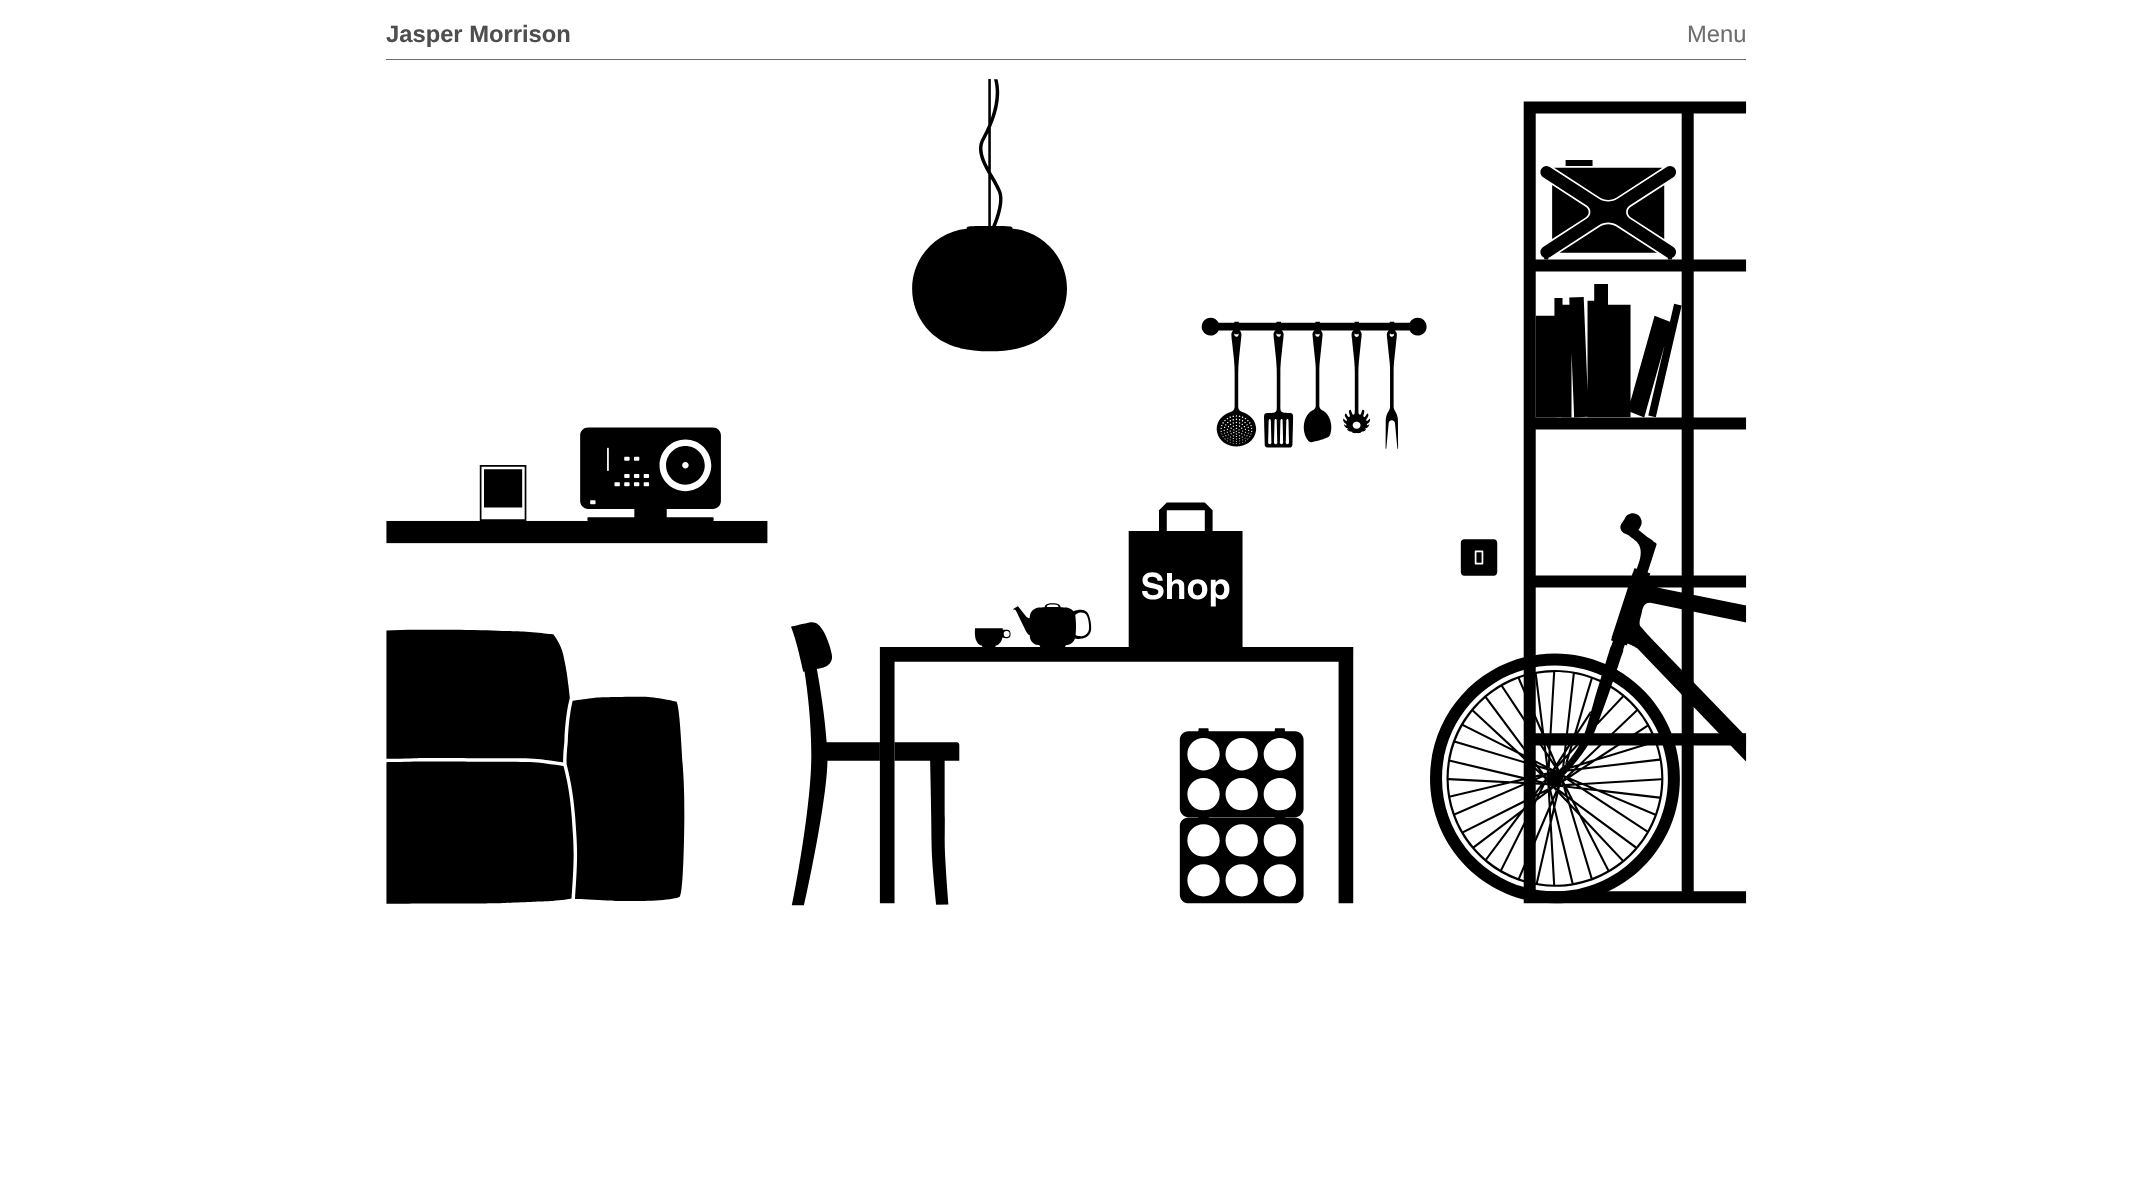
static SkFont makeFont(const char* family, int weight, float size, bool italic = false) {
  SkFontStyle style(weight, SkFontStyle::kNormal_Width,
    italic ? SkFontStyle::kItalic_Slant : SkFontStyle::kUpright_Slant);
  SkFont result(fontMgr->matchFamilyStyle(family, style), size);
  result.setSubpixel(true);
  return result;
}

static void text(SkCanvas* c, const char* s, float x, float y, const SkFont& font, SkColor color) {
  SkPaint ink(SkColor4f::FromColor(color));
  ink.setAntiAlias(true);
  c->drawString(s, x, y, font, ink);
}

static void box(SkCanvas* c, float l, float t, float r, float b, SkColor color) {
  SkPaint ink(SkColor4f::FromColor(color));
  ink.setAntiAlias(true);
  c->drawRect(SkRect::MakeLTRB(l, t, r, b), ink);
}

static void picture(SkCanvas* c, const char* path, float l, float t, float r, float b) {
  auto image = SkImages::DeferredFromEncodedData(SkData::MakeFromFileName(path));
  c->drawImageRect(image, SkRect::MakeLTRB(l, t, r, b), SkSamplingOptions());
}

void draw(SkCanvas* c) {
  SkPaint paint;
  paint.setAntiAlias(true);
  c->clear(0xffffffff);
  box(c, 386, 59, 1746, 60, 0xff6e6e6e);
  SkFont face1 = makeFont("Liberation Sans", 700, 23.75f);
  text(c, "Jasper Morrison", 386, 42, face1, 0xff4e4e4e);
  SkFont face2 = makeFont("Liberation Sans", 400, 23.75f);
  text(c, "Menu", 1687, 42, face2, 0xff6e6e6e);
  picture(c, "img_01.png", 386, 79, 1747, 906);
}
